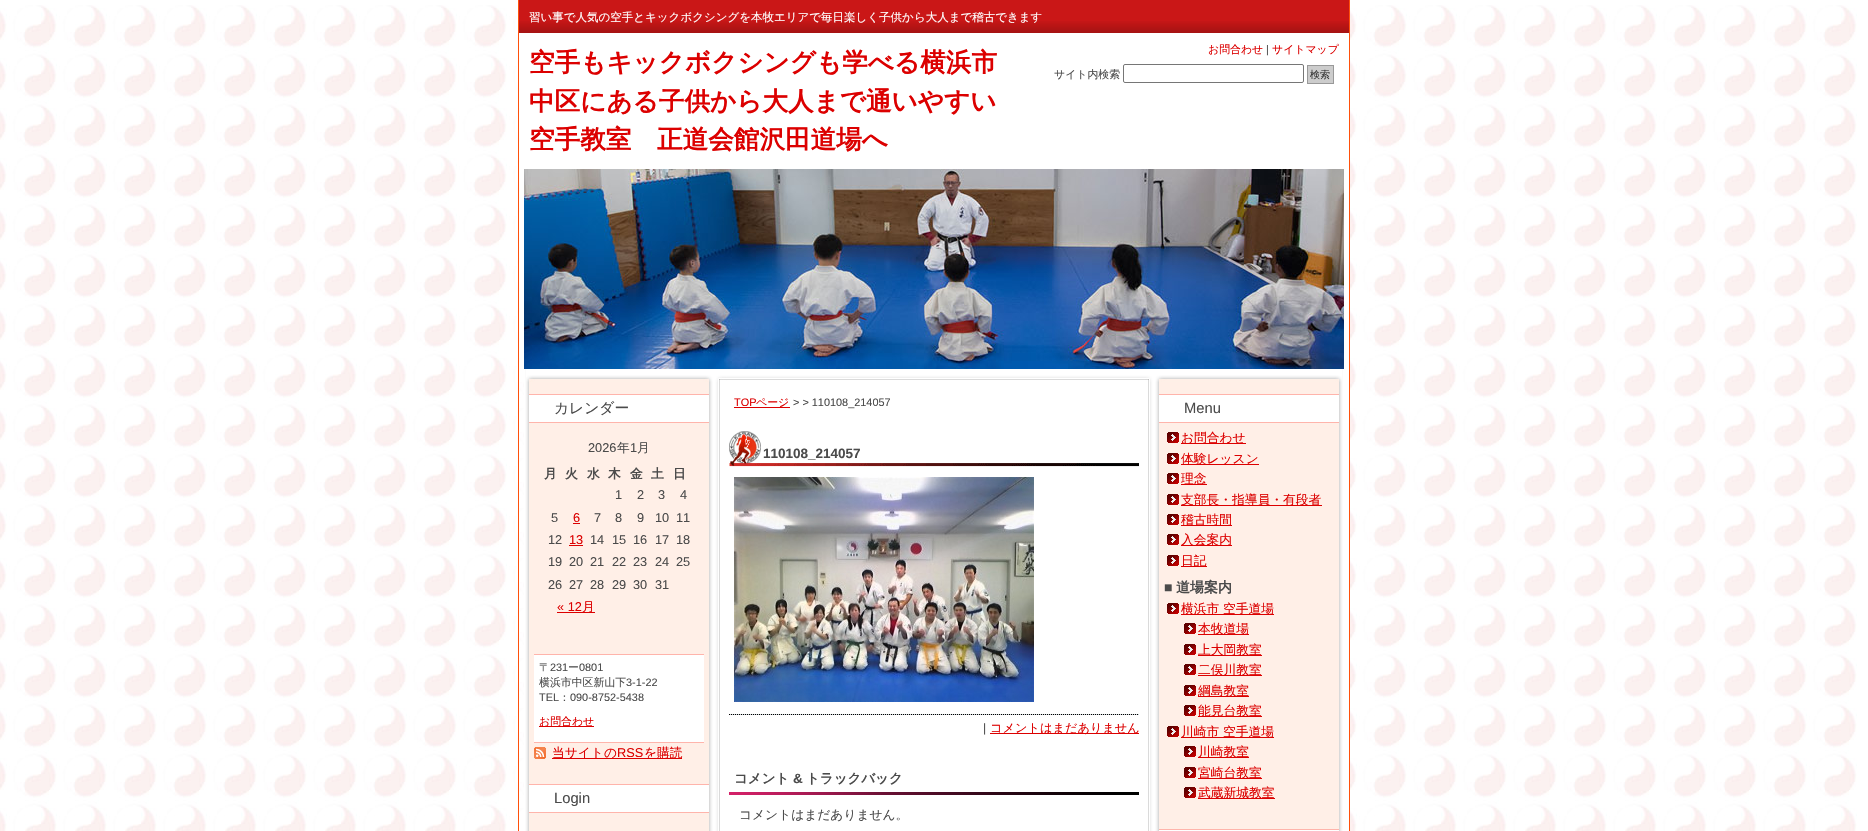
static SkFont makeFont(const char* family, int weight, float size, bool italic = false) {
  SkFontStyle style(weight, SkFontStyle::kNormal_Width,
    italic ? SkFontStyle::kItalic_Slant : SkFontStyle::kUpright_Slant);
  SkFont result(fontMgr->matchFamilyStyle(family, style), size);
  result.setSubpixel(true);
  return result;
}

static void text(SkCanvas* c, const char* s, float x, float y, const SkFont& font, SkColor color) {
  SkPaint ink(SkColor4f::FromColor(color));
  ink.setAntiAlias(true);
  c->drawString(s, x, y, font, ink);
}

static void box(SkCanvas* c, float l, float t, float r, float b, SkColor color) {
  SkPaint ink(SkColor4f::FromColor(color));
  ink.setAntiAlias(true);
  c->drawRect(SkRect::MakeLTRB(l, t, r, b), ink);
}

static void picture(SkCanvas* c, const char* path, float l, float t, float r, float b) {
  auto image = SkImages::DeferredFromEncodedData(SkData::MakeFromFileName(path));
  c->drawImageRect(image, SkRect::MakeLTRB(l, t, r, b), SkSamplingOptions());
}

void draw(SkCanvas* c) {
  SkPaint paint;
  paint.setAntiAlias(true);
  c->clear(0xffffffff);
  picture(c, "img_01.png", 0, 5, 1857, 831);
  picture(c, "img_02.png", 524, 369, 1349, 831);
  box(c, 1349, 0, 1350, 831, 0xffff500a);
  box(c, 518, 0, 519, 831, 0xffff500a);
  box(c, 520, 33, 1349, 369, 0xffffffff);
  box(c, 519, 0, 1349, 21, 0xffca1717);
  picture(c, "img_03.png", 519, 21, 1349, 33);
  SkFont face1 = makeFont("WenQuanYi Zen Hei", 500, 11.5f);
  text(c, "習い事で人気の空手とキックボクシングを本牧エリアで毎日楽しく子供から大人まで稽古できます", 529, 21, face1, 0xffffffff);
  SkFont face2 = makeFont("WenQuanYi Zen Hei", 700, 25.6f);
  text(c, "空手もキックボクシングも学べる横浜市", 529, 71, face2, 0xffdc0000);
  text(c, "中区にある子供から大人まで通いやすい", 529, 110, face2, 0xffdc0000);
  text(c, "空手教室　正道会館沢田道場へ", 529, 148, face2, 0xffdc0000);
  SkFont face3 = makeFont("WenQuanYi Zen Hei", 500, 10.9f);
  text(c, "お問合わせ", 1208, 53, face3, 0xffdc0000);
  SkFont face4 = makeFont("Liberation Sans", 400, 10.9f);
  text(c, "|", 1266, 53, face4, 0xff4b4b4b);
  text(c, "サイトマップ", 1272, 53, face3, 0xffdc0000);
  text(c, "サイト内検索", 1054, 78, face3, 0xff4b4b4b);
  paint.setStyle(SkPaint::kStroke_Style);
  paint.setStrokeWidth(1);
  paint.setColor(0xff767676);
  c->drawRoundRect(SkRect::MakeLTRB(1123.5f, 64.5f, 1303.5f, 82.5f), 1.5f, 1.5f, paint);
  paint.setStyle(SkPaint::kFill_Style);
  paint.setColor(0xffcccccc);
  c->drawRect(SkRect::MakeLTRB(1307.5f, 65.5f, 1333.5f, 83.5f), paint);
  paint.setStyle(SkPaint::kStroke_Style);
  paint.setColor(0xff999999);
  c->drawRect(SkRect::MakeLTRB(1307.5f, 65.5f, 1333.5f, 83.5f), paint);
  SkFont face5 = makeFont("WenQuanYi Zen Hei", 500, 10);
  text(c, "検索", 1310, 78, face5, 0xff333333);
  picture(c, "img_04.png", 524, 169, 1344, 369);
  picture(c, "img_05.png", 526, 369, 1342, 382);
  box(c, 529, 395, 709, 422, 0xffffffff);
  box(c, 529, 394, 709, 395, 0xffffb4ab);
  box(c, 529, 422, 709, 423, 0xffffb4ab);
  SkFont face6 = makeFont("WenQuanYi Zen Hei", 500, 14.75f);
  text(c, "カレンダー", 554, 413, face6, 0xff4b4b4b);
  SkFont face7 = makeFont("Liberation Sans", 400, 12.75f);
  text(c, "2026", 588, 452, face7, 0xff4b4b4b);
  SkFont face8 = makeFont("WenQuanYi Zen Hei", 500, 12.75f);
  text(c, "年", 617, 452, face8, 0xff4b4b4b);
  text(c, "1", 630, 452, face7, 0xff4b4b4b);
  text(c, "月", 637, 452, face8, 0xff4b4b4b);
  SkFont face9 = makeFont("WenQuanYi Zen Hei", 700, 12.75f);
  text(c, "月", 544, 478, face9, 0xff4b4b4b);
  text(c, "火", 565, 478, face9, 0xff4b4b4b);
  text(c, "水", 587, 478, face9, 0xff4b4b4b);
  text(c, "木", 608, 478, face9, 0xff4b4b4b);
  text(c, "金", 630, 478, face9, 0xff4b4b4b);
  text(c, "土", 651, 478, face9, 0xff4b4b4b);
  text(c, "日", 673, 478, face9, 0xff4b4b4b);
  text(c, "1", 615, 499, face7, 0xff4b4b4b);
  text(c, "2", 637, 499, face7, 0xff4b4b4b);
  text(c, "3", 658, 499, face7, 0xff4b4b4b);
  text(c, "4", 680, 499, face7, 0xff4b4b4b);
  text(c, "5", 551, 522, face7, 0xff4b4b4b);
  text(c, "6", 573, 522, face7, 0xffdc0000);
  box(c, 573, 523, 580, 524, 0xffdc0000);
  text(c, "7", 594, 522, face7, 0xff4b4b4b);
  text(c, "8", 615, 522, face7, 0xff4b4b4b);
  text(c, "9", 637, 522, face7, 0xff4b4b4b);
  text(c, "10", 655, 522, face7, 0xff4b4b4b);
  text(c, "11", 676, 522, face7, 0xff4b4b4b);
  text(c, "12", 548, 544, face7, 0xff4b4b4b);
  text(c, "13", 569, 544, face7, 0xffdc0000);
  box(c, 569, 545, 583, 546, 0xffdc0000);
  text(c, "14", 590, 544, face7, 0xff4b4b4b);
  text(c, "15", 612, 544, face7, 0xff4b4b4b);
  text(c, "16", 633, 544, face7, 0xff4b4b4b);
  text(c, "17", 655, 544, face7, 0xff4b4b4b);
  text(c, "18", 676, 544, face7, 0xff4b4b4b);
  text(c, "19", 548, 566, face7, 0xff4b4b4b);
  text(c, "20", 569, 566, face7, 0xff4b4b4b);
  text(c, "21", 590, 566, face7, 0xff4b4b4b);
  text(c, "22", 612, 566, face7, 0xff4b4b4b);
  text(c, "23", 633, 566, face7, 0xff4b4b4b);
  text(c, "24", 655, 566, face7, 0xff4b4b4b);
  text(c, "25", 676, 566, face7, 0xff4b4b4b);
  text(c, "26", 548, 589, face7, 0xff4b4b4b);
  text(c, "27", 569, 589, face7, 0xff4b4b4b);
  text(c, "28", 590, 589, face7, 0xff4b4b4b);
  text(c, "29", 612, 589, face7, 0xff4b4b4b);
  text(c, "30", 633, 589, face7, 0xff4b4b4b);
  text(c, "31", 655, 589, face7, 0xff4b4b4b);
  text(c, "« 12", 557, 611, face7, 0xffdc0000);
  box(c, 557, 612, 595, 613, 0xffdc0000);
  text(c, "月", 582, 611, face8, 0xffdc0000);
  box(c, 534, 655, 704, 742, 0xffffffff);
  box(c, 534, 654, 704, 655, 0xffffb4ab);
  box(c, 534, 742, 704, 743, 0xffffb4ab);
  text(c, "〒", 539, 671, face3, 0xff4b4b4b);
  text(c, "231", 550, 671, face4, 0xff4b4b4b);
  text(c, "ー", 568, 671, face3, 0xff4b4b4b);
  text(c, "0801", 579, 671, face4, 0xff4b4b4b);
  text(c, "横浜市中区新山下", 539, 686, face3, 0xff4b4b4b);
  text(c, "3-1-22", 626, 686, face4, 0xff4b4b4b);
  text(c, "TEL", 539, 701, face4, 0xff4b4b4b);
  text(c, "：", 559, 701, face3, 0xff4b4b4b);
  text(c, "090-8752-5438", 570, 701, face4, 0xff4b4b4b);
  box(c, 539, 726, 594, 727, 0xffdc0000);
  text(c, "お問合わせ", 539, 725, face3, 0xffdc0000);
  picture(c, "img_06.png", 534, 747, 546, 759);
  box(c, 552, 758, 682, 759, 0xffdc0000);
  text(c, "当サイトの", 552, 757, face8, 0xffdc0000);
  text(c, "RSS", 617, 757, face7, 0xffdc0000);
  text(c, "を購読", 644, 757, face8, 0xffdc0000);
  box(c, 529, 785, 709, 812, 0xffffffff);
  box(c, 529, 784, 709, 785, 0xffffb4ab);
  box(c, 529, 812, 709, 813, 0xffffb4ab);
  SkFont face10 = makeFont("Liberation Sans", 400, 14.75f);
  text(c, "Login", 554, 803, face10, 0xff4b4b4b);
  text(c, "TOP", 734, 406, face4, 0xffdc0000);
  box(c, 734, 407, 790, 408, 0xffdc0000);
  text(c, "ページ", 756, 406, face3, 0xffdc0000);
  text(c, "> > 110108_214057", 793, 406, face4, 0xff4b4b4b);
  picture(c, "img_07.png", 729, 431, 1139, 467);
  SkFont face11 = makeFont("Liberation Sans", 700, 13.5f);
  text(c, "110108_214057", 763, 458, face11, 0xff4b4b4b);
  picture(c, "img_08.png", 734, 477, 1034, 702);
  picture(c, "img_09.png", 729, 714, 1139, 715);
  SkFont face12 = makeFont("Liberation Sans", 400, 12.2f);
  text(c, "|", 983, 732, face12, 0xff4b4b4b);
  box(c, 990, 733, 1139, 734, 0xffdc0000);
  SkFont face13 = makeFont("WenQuanYi Zen Hei", 500, 12.2f);
  text(c, "コメントはまだありません", 990, 732, face13, 0xffdc0000);
  picture(c, "img_10.png", 729, 792, 1139, 795);
  SkFont face14 = makeFont("WenQuanYi Zen Hei", 700, 13.5f);
  text(c, "コメント", 734, 783, face14, 0xff4b4b4b);
  text(c, "&", 793, 783, face11, 0xff4b4b4b);
  text(c, "トラックバック", 806, 783, face14, 0xff4b4b4b);
  text(c, "コメントはまだありません。", 739, 819, face8, 0xff4b4b4b);
  box(c, 1159, 395, 1339, 422, 0xffffffff);
  box(c, 1159, 394, 1339, 395, 0xffffb4ab);
  box(c, 1159, 422, 1339, 423, 0xffffb4ab);
  text(c, "Menu", 1184, 413, face10, 0xff4b4b4b);
  picture(c, "img_11.png", 1167, 432, 1179, 443);
  box(c, 1181, 443, 1246, 444, 0xffdc0000);
  text(c, "お問合わせ", 1181, 442, face8, 0xffdc0000);
  picture(c, "img_11.png", 1167, 453, 1179, 464);
  box(c, 1181, 464, 1259, 465, 0xffdc0000);
  text(c, "体験レッスン", 1181, 463, face8, 0xffdc0000);
  picture(c, "img_11.png", 1167, 473, 1179, 484);
  box(c, 1181, 484, 1207, 485, 0xffdc0000);
  text(c, "理念", 1181, 483, face8, 0xffdc0000);
  picture(c, "img_11.png", 1167, 494, 1179, 505);
  box(c, 1181, 505, 1322, 506, 0xffdc0000);
  text(c, "支部長・指導員・有段者", 1181, 504, face8, 0xffdc0000);
  picture(c, "img_11.png", 1167, 514, 1179, 525);
  box(c, 1181, 525, 1232, 526, 0xffdc0000);
  text(c, "稽古時間", 1181, 524, face8, 0xffdc0000);
  picture(c, "img_11.png", 1167, 534, 1179, 545);
  box(c, 1181, 545, 1232, 546, 0xffdc0000);
  text(c, "入会案内", 1181, 544, face8, 0xffdc0000);
  picture(c, "img_11.png", 1167, 555, 1179, 566);
  box(c, 1181, 566, 1207, 567, 0xffdc0000);
  text(c, "日記", 1181, 565, face8, 0xffdc0000);
  SkFont face15 = makeFont("Liberation Sans", 700, 14);
  text(c, "■", 1164, 592, face15, 0xff4b4b4b);
  SkFont face16 = makeFont("WenQuanYi Zen Hei", 700, 14);
  text(c, "道場案内", 1176, 592, face16, 0xff4b4b4b);
  picture(c, "img_11.png", 1167, 603, 1179, 614);
  box(c, 1181, 614, 1274, 615, 0xffdc0000);
  text(c, "横浜市 空手道場", 1181, 613, face8, 0xffdc0000);
  picture(c, "img_11.png", 1184, 623, 1196, 634);
  box(c, 1198, 634, 1249, 635, 0xffdc0000);
  text(c, "本牧道場", 1198, 633, face8, 0xffdc0000);
  picture(c, "img_11.png", 1184, 644, 1196, 655);
  box(c, 1198, 655, 1262, 656, 0xffdc0000);
  text(c, "上大岡教室", 1198, 654, face8, 0xffdc0000);
  picture(c, "img_11.png", 1184, 664, 1196, 675);
  box(c, 1198, 675, 1262, 676, 0xffdc0000);
  text(c, "二俣川教室", 1198, 674, face8, 0xffdc0000);
  picture(c, "img_11.png", 1184, 685, 1196, 696);
  box(c, 1198, 696, 1249, 697, 0xffdc0000);
  text(c, "綱島教室", 1198, 695, face8, 0xffdc0000);
  picture(c, "img_11.png", 1184, 705, 1196, 716);
  box(c, 1198, 716, 1262, 717, 0xffdc0000);
  text(c, "能見台教室", 1198, 715, face8, 0xffdc0000);
  picture(c, "img_11.png", 1167, 726, 1179, 737);
  box(c, 1181, 737, 1274, 738, 0xffdc0000);
  text(c, "川崎市 空手道場", 1181, 736, face8, 0xffdc0000);
  picture(c, "img_11.png", 1184, 746, 1196, 757);
  box(c, 1198, 757, 1249, 758, 0xffdc0000);
  text(c, "川崎教室", 1198, 756, face8, 0xffdc0000);
  picture(c, "img_11.png", 1184, 767, 1196, 778);
  box(c, 1198, 778, 1262, 779, 0xffdc0000);
  text(c, "宮崎台教室", 1198, 777, face8, 0xffdc0000);
  picture(c, "img_11.png", 1184, 787, 1196, 798);
  box(c, 1198, 798, 1275, 799, 0xffdc0000);
  text(c, "武蔵新城教室", 1198, 797, face8, 0xffdc0000);
  box(c, 1159, 830, 1339, 831, 0xffffffff);
  box(c, 1159, 829, 1339, 830, 0xffffb4ab);
}
